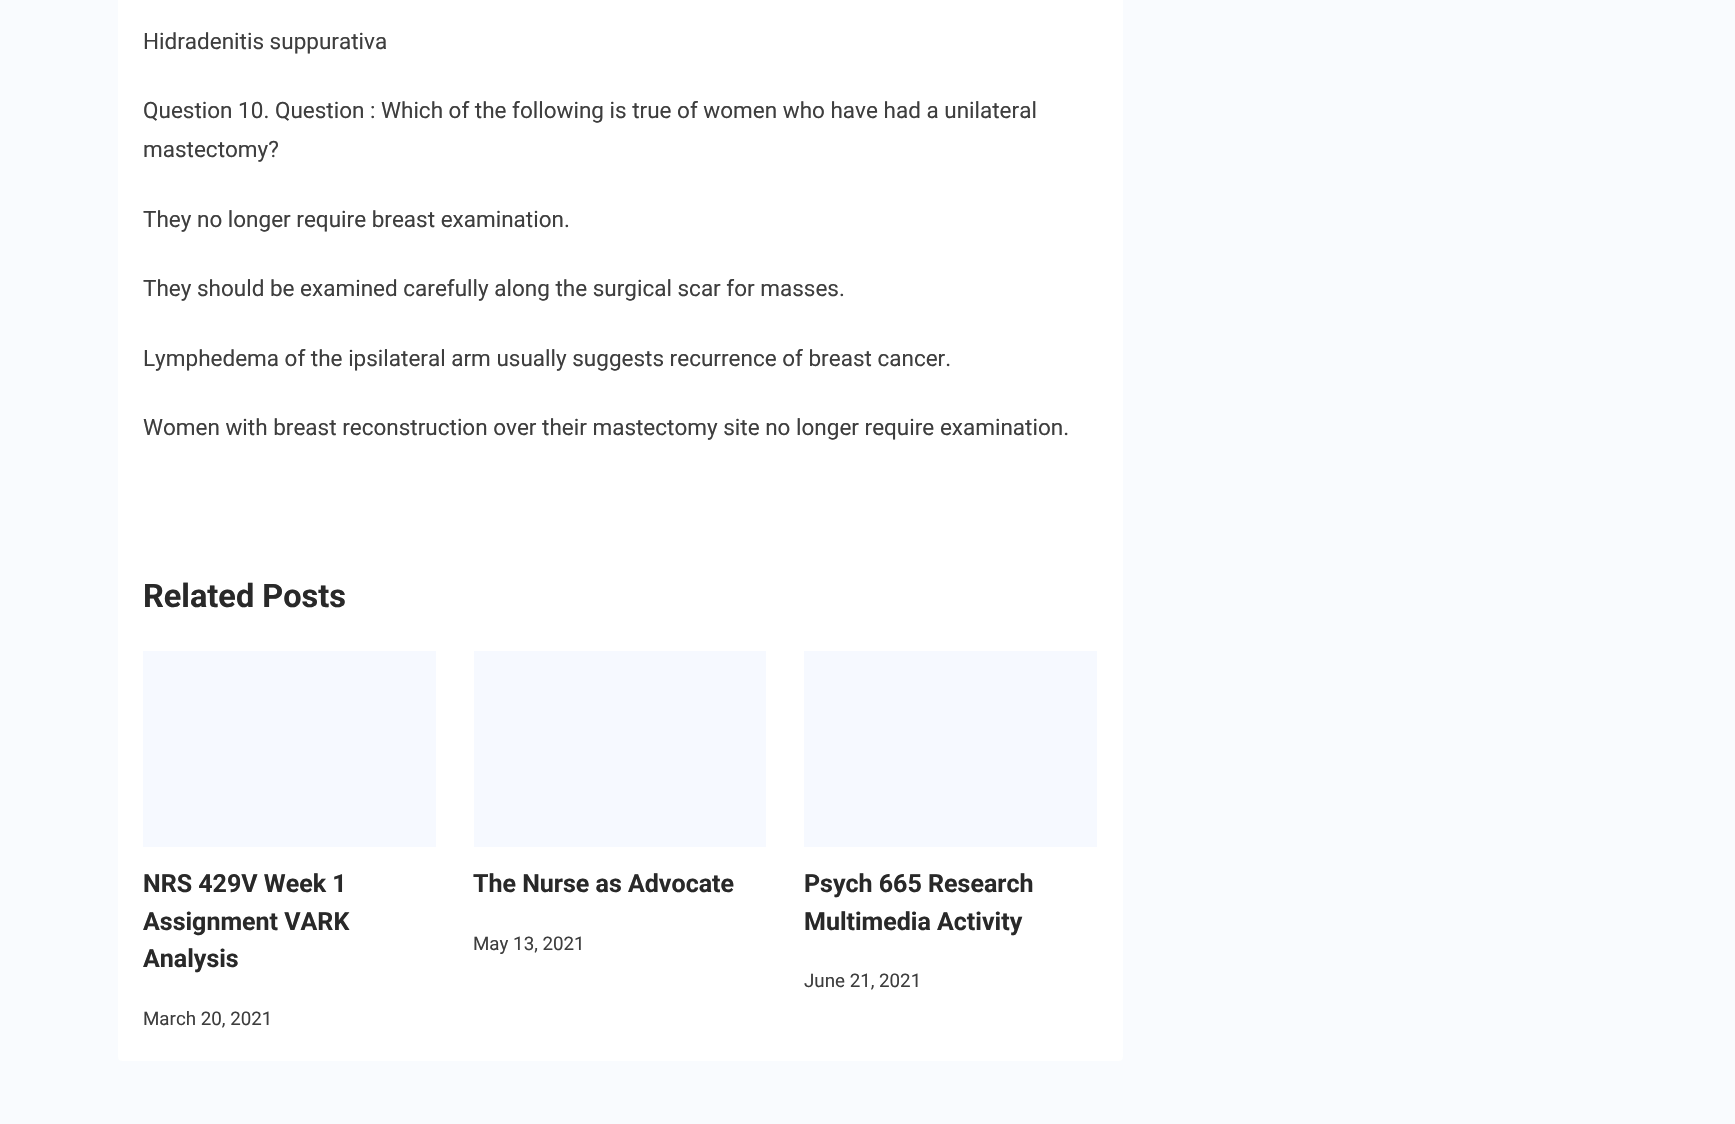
static SkFont makeFont(const char* family, int weight, float size, bool italic = false) {
  SkFontStyle style(weight, SkFontStyle::kNormal_Width,
    italic ? SkFontStyle::kItalic_Slant : SkFontStyle::kUpright_Slant);
  SkFont result(fontMgr->matchFamilyStyle(family, style), size);
  result.setSubpixel(true);
  return result;
}

static void text(SkCanvas* c, const char* s, float x, float y, const SkFont& font, SkColor color) {
  SkPaint ink(SkColor4f::FromColor(color));
  ink.setAntiAlias(true);
  c->drawString(s, x, y, font, ink);
}

static void box(SkCanvas* c, float l, float t, float r, float b, SkColor color) {
  SkPaint ink(SkColor4f::FromColor(color));
  ink.setAntiAlias(true);
  c->drawRect(SkRect::MakeLTRB(l, t, r, b), ink);
}

static void roundBox(SkCanvas* c, float l, float t, float r, float b, float radius, SkColor color) {
  SkPaint ink(SkColor4f::FromColor(color));
  ink.setAntiAlias(true);
  c->drawRoundRect(SkRect::MakeLTRB(l, t, r, b), radius, radius, ink);
}

void draw(SkCanvas* c) {
  SkPaint paint;
  paint.setAntiAlias(true);
  c->clear(0xfff9fbfe);
  roundBox(c, 118, -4, 1123, 1061, 4, 0xffffffff);
  SkFont face1 = makeFont("Roboto", 400, 22.5f);
  text(c, "Hidradenitis suppurativa", 143, 49, face1, 0xff3e3e3e);
  text(c, "Question 10. Question : Which of the following is true of women who have had a unilateral", 143, 118, face1, 0xff3e3e3e);
  text(c, "mastectomy?", 143, 157, face1, 0xff3e3e3e);
  text(c, "They no longer require breast examination.", 143, 227, face1, 0xff3e3e3e);
  text(c, "They should be examined carefully along the surgical scar for masses.", 143, 296, face1, 0xff3e3e3e);
  text(c, "Lymphedema of the ipsilateral arm usually suggests recurrence of breast cancer.", 143, 366, face1, 0xff3e3e3e);
  text(c, "Women with breast reconstruction over their mastectomy site no longer require examination.", 143, 435, face1, 0xff3e3e3e);
  SkFont face2 = makeFont("Roboto", 700, 32.5f);
  text(c, "Related Posts", 143, 607, face2, 0xff292929);
  box(c, 143, 651, 436, 847, 0xfff6f9ff);
  SkFont face3 = makeFont("Roboto", 700, 25);
  text(c, "NRS 429V Week 1", 143, 892, face3, 0xff292929);
  text(c, "Assignment VARK", 143, 930, face3, 0xff292929);
  text(c, "Analysis", 143, 967, face3, 0xff292929);
  SkFont face4 = makeFont("Roboto", 400, 18.75f);
  text(c, "March 20, 2021", 143, 1025, face4, 0xff3e3e3e);
  box(c, 474, 651, 766, 847, 0xfff6f9ff);
  text(c, "The Nurse as Advocate", 473, 892, face3, 0xff292929);
  text(c, "May 13, 2021", 473, 950, face4, 0xff3e3e3e);
  box(c, 804, 651, 1097, 847, 0xfff6f9ff);
  text(c, "Psych 665 Research", 804, 892, face3, 0xff292929);
  text(c, "Multimedia Activity", 804, 930, face3, 0xff292929);
  text(c, "June 21, 2021", 804, 987, face4, 0xff3e3e3e);
}
